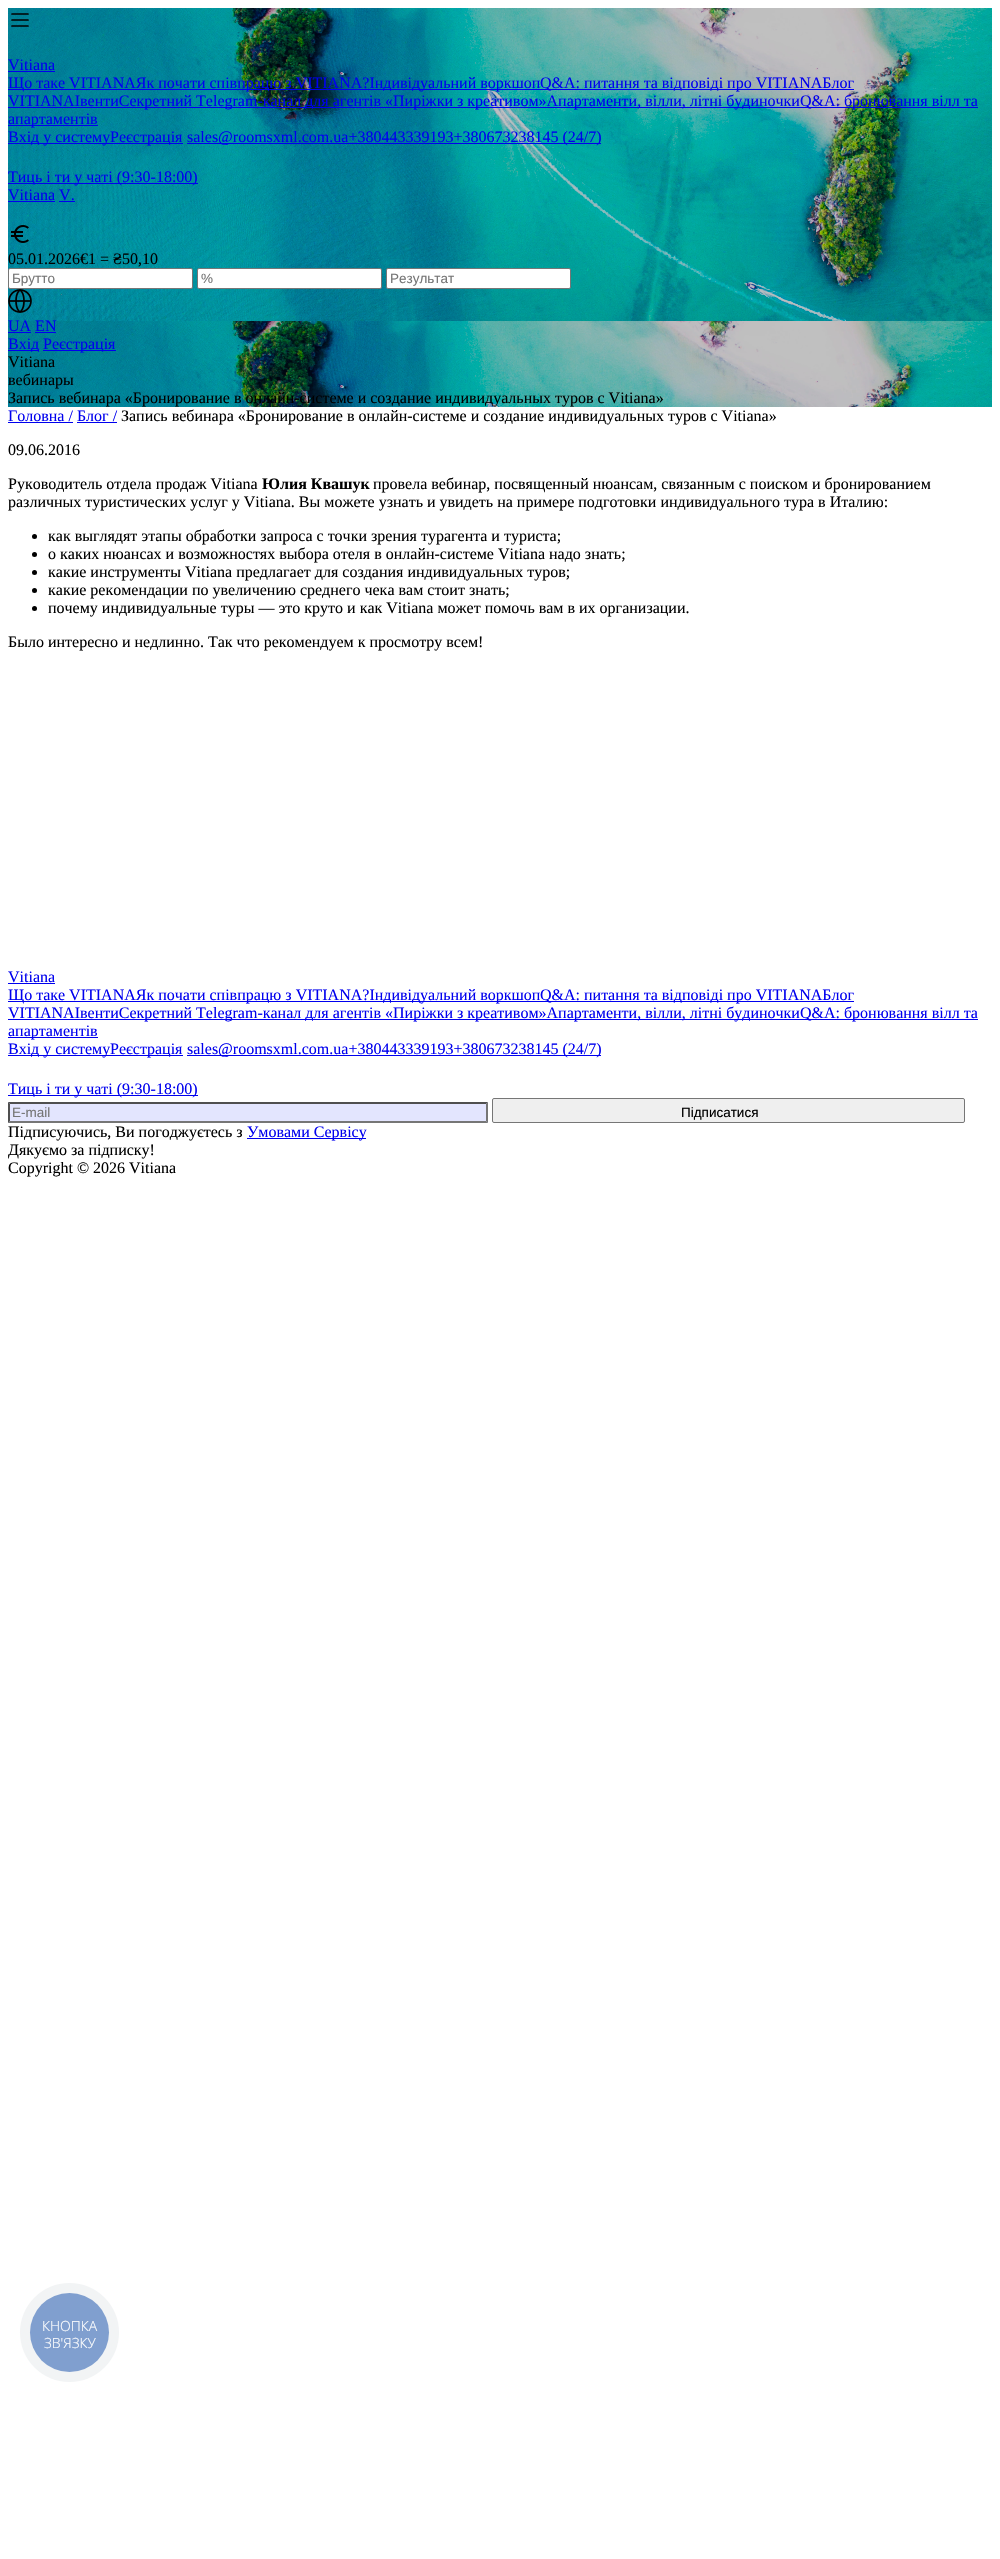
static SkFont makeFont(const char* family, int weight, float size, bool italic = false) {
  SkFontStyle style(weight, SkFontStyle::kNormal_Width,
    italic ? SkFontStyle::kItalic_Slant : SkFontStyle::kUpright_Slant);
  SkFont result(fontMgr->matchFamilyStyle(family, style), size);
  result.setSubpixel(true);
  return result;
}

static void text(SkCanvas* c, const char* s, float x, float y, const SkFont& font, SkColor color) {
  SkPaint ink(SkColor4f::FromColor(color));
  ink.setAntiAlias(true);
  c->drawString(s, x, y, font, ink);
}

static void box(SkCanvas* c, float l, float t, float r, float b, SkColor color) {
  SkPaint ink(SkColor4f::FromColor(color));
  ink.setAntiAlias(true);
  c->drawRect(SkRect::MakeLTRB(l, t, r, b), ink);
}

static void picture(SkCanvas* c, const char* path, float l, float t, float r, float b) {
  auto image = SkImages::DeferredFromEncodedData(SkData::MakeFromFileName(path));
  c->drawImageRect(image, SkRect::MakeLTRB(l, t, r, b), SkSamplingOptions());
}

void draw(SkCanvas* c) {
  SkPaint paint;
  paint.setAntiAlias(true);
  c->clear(0xffffffff);
  picture(c, "img_01.png", 8, 8, 992, 407);
  paint.setStyle(SkPaint::kStroke_Style);
  paint.setStrokeWidth(1.7f);
  paint.setStrokeCap(SkPaint::kRound_Cap);
  paint.setStrokeJoin(SkPaint::kRound_Join);
  paint.setColor(0xff000000);
  c->drawPath(SkPathBuilder().moveTo(12, 26).lineTo(28, 26).moveTo(12, 20).lineTo(28, 20).moveTo(12, 14).lineTo(28, 14).detach(), paint);
  SkFont face1 = makeFont("Liberation Serif", 400, 16);
  text(c, "Vitiana", 8, 70, face1, 0xff0000ee);
  box(c, 8, 71, 55, 72, 0xff0000ee);
  box(c, 8, 89, 540, 90, 0xff0000ee);
  text(c, "Що таке VITIANAЯк почати співпрацю з VITIANA?Індивідуальний воркшоп", 8, 88, face1, 0xff0000ee);
  box(c, 540, 89, 854, 90, 0xff0000ee);
  text(c, "Q&A: питання та відповіді про VITIANAБлог", 540, 88, face1, 0xff0000ee);
  box(c, 8, 107, 978, 108, 0xff0000ee);
  text(c, "VITIANAІвентиСекретний Telegram-канал для агентів «Пиріжки з креативом»Апартаменти, вілли, літні будиночкиQ&A: бронювання вілл та", 8, 106, face1, 0xff0000ee);
  box(c, 8, 125, 98, 126, 0xff0000ee);
  text(c, "апартаментів", 8, 124, face1, 0xff0000ee);
  box(c, 8, 143, 110, 144, 0xff0000ee);
  text(c, "Вхід у систему", 8, 142, face1, 0xff0000ee);
  box(c, 110, 143, 183, 144, 0xff0000ee);
  text(c, "Реєстрація", 110, 142, face1, 0xff0000ee);
  box(c, 187, 143, 601, 144, 0xff0000ee);
  text(c, "sales@roomsxml.com.ua+380443339193+380673238145 (24/7)", 187, 142, face1, 0xff0000ee);
  box(c, 8, 183, 198, 184, 0xff0000ee);
  text(c, "Тиць і ти у чаті (9:30-18:00)", 8, 182, face1, 0xff0000ee);
  text(c, "Vitiana V.", 8, 200, face1, 0xff0000ee);
  box(c, 8, 201, 55, 202, 0xff0000ee);
  box(c, 59, 201, 75, 202, 0xff0000ee);
  picture(c, "img_02.png", 11, 225, 29, 243);
  text(c, "05.01.2026€1 = ₴50,10", 8, 264, face1, 0xff000000);
  paint.setStyle(SkPaint::kFill_Style);
  paint.setColor(0xffffffff);
  c->drawRoundRect(SkRect::MakeLTRB(8.5f, 268.5f, 192.5f, 288.5f), 1.5f, 1.5f, paint);
  paint.setStyle(SkPaint::kStroke_Style);
  paint.setStrokeWidth(1);
  paint.setStrokeCap(SkPaint::kButt_Cap);
  paint.setStrokeJoin(SkPaint::kMiter_Join);
  paint.setColor(0xff767676);
  c->drawRoundRect(SkRect::MakeLTRB(8.5f, 268.5f, 192.5f, 288.5f), 1.5f, 1.5f, paint);
  SkFont face2 = makeFont("Liberation Sans", 400, 13.5f);
  text(c, "Брутто", 12, 283, face2, 0xff757575);
  paint.setStyle(SkPaint::kFill_Style);
  paint.setColor(0xffffffff);
  c->drawRoundRect(SkRect::MakeLTRB(197.5f, 268.5f, 381.5f, 288.5f), 1.5f, 1.5f, paint);
  paint.setStyle(SkPaint::kStroke_Style);
  paint.setColor(0xff767676);
  c->drawRoundRect(SkRect::MakeLTRB(197.5f, 268.5f, 381.5f, 288.5f), 1.5f, 1.5f, paint);
  text(c, "%", 201, 283, face2, 0xff757575);
  paint.setStyle(SkPaint::kFill_Style);
  paint.setColor(0xffffffff);
  c->drawRoundRect(SkRect::MakeLTRB(386.5f, 268.5f, 570.5f, 288.5f), 1.5f, 1.5f, paint);
  paint.setStyle(SkPaint::kStroke_Style);
  paint.setColor(0xff767676);
  c->drawRoundRect(SkRect::MakeLTRB(386.5f, 268.5f, 570.5f, 288.5f), 1.5f, 1.5f, paint);
  text(c, "Результат", 390, 283, face2, 0xff757575);
  picture(c, "img_03.png", 8, 289, 32, 313);
  text(c, "UA EN", 8, 331, face1, 0xff0000ee);
  box(c, 8, 332, 31, 333, 0xff0000ee);
  box(c, 35, 332, 56, 333, 0xff0000ee);
  box(c, 8, 350, 39, 351, 0xff0000ee);
  text(c, "Вхід", 8, 349, face1, 0xff0000ee);
  box(c, 43, 350, 116, 351, 0xff0000ee);
  text(c, "Реєстрація", 43, 349, face1, 0xff0000ee);
  text(c, "Vitiana", 8, 367, face1, 0xff000000);
  text(c, "вебинары", 8, 385, face1, 0xff000000);
  text(c, "Запись вебинара «Бронирование в онлайн-системе и создание индивидуальных туров с Vitiana»", 8, 403, face1, 0xff000000);
  text(c, "Головна / Блог /", 8, 421, face1, 0xff0000ee);
  box(c, 8, 422, 73, 423, 0xff0000ee);
  text(c, "Запись вебинара «Бронирование в онлайн-системе и создание индивидуальных туров с Vitiana»", 121, 421, face1, 0xff000000);
  box(c, 77, 422, 117, 423, 0xff0000ee);
  text(c, "09.06.2016", 8, 455, face1, 0xff000000);
  text(c, "Руководитель отдела продаж Vitiana", 8, 489, face1, 0xff000000);
  SkFont face3 = makeFont("Liberation Serif", 700, 16);
  text(c, "Юлия Квашук", 262, 489, face3, 0xff000000);
  text(c, "провела вебинар, посвященный нюансам, связанным с поиском и бронированием", 373, 489, face1, 0xff000000);
  text(c, "различных туристических услуг у Vitiana. Вы можете узнать и увидеть на примере подготовки индивидуального тура в Италию:", 8, 507, face1, 0xff000000);
  paint.setStyle(SkPaint::kFill_Style);
  paint.setColor(0xff000000);
  c->drawCircle(34.5f, 536.5f, 2.5f, paint);
  text(c, "как выглядят этапы обработки запроса с точки зрения турагента и туриста;", 48, 541, face1, 0xff000000);
  c->drawCircle(34.5f, 554.5f, 2.5f, paint);
  text(c, "о каких нюансах и возможностях выбора отеля в онлайн-системе Vitiana надо знать;", 48, 559, face1, 0xff000000);
  c->drawCircle(34.5f, 572.5f, 2.5f, paint);
  text(c, "какие инструменты Vitiana предлагает для создания индивидуальных туров;", 48, 577, face1, 0xff000000);
  c->drawCircle(34.5f, 590.5f, 2.5f, paint);
  text(c, "какие рекомендации по увеличению среднего чека вам стоит знать;", 48, 595, face1, 0xff000000);
  c->drawCircle(34.5f, 608.5f, 2.5f, paint);
  text(c, "почему индивидуальные туры — это круто и как Vitiana может помочь вам в их организации.", 48, 613, face1, 0xff000000);
  text(c, "Было интересно и недлинно. Так что рекомендуем к просмотру всем!", 8, 647, face1, 0xff000000);
  text(c, "Vitiana", 8, 982, face1, 0xff0000ee);
  box(c, 8, 983, 55, 984, 0xff0000ee);
  box(c, 8, 1001, 540, 1002, 0xff0000ee);
  text(c, "Що таке VITIANAЯк почати співпрацю з VITIANA?Індивідуальний воркшоп", 8, 1000, face1, 0xff0000ee);
  box(c, 540, 1001, 854, 1002, 0xff0000ee);
  text(c, "Q&A: питання та відповіді про VITIANAБлог", 540, 1000, face1, 0xff0000ee);
  box(c, 8, 1019, 978, 1020, 0xff0000ee);
  text(c, "VITIANAІвентиСекретний Telegram-канал для агентів «Пиріжки з креативом»Апартаменти, вілли, літні будиночкиQ&A: бронювання вілл та", 8, 1018, face1, 0xff0000ee);
  box(c, 8, 1037, 98, 1038, 0xff0000ee);
  text(c, "апартаментів", 8, 1036, face1, 0xff0000ee);
  box(c, 8, 1055, 110, 1056, 0xff0000ee);
  text(c, "Вхід у систему", 8, 1054, face1, 0xff0000ee);
  box(c, 110, 1055, 183, 1056, 0xff0000ee);
  text(c, "Реєстрація", 110, 1054, face1, 0xff0000ee);
  box(c, 187, 1055, 601, 1056, 0xff0000ee);
  text(c, "sales@roomsxml.com.ua+380443339193+380673238145 (24/7)", 187, 1054, face1, 0xff0000ee);
  box(c, 8, 1095, 198, 1096, 0xff0000ee);
  text(c, "Тиць і ти у чаті (9:30-18:00)", 8, 1094, face1, 0xff0000ee);
  box(c, 8, 1102, 488, 1123, 0xffe3e5fe);
  paint.setColor(0xff4f4f4f);
  c->drawPath(SkPathBuilder().moveTo(8, 1102).lineTo(488, 1102).lineTo(486, 1104).lineTo(10, 1104).close().detach(), paint);
  paint.setColor(0xff767676);
  c->drawPath(SkPathBuilder().moveTo(488, 1102).lineTo(488, 1123).lineTo(486, 1121).lineTo(486, 1104).close().detach(), paint);
  c->drawPath(SkPathBuilder().moveTo(488, 1123).lineTo(8, 1123).lineTo(10, 1121).lineTo(486, 1121).close().detach(), paint);
  paint.setColor(0xff4f4f4f);
  c->drawPath(SkPathBuilder().moveTo(8, 1123).lineTo(8, 1102).lineTo(10, 1104).lineTo(10, 1121).close().detach(), paint);
  text(c, "E-mail", 12, 1117, face2, 0xff757575);
  paint.setColor(0xffefefef);
  c->drawRoundRect(SkRect::MakeLTRB(492.5f, 1098.5f, 964.5f, 1122.5f), 1.5f, 1.5f, paint);
  paint.setStyle(SkPaint::kStroke_Style);
  paint.setColor(0xff767676);
  c->drawRoundRect(SkRect::MakeLTRB(492.5f, 1098.5f, 964.5f, 1122.5f), 1.5f, 1.5f, paint);
  text(c, "Підписатися", 681, 1117, face2, 0xff000000);
  text(c, "Підписуючись, Ви погоджуєтесь з", 8, 1137, face1, 0xff000000);
  box(c, 247, 1138, 366, 1139, 0xff0000ee);
  text(c, "Умовами Сервісу", 247, 1137, face1, 0xff0000ee);
  text(c, "Дякуємо за підписку!", 8, 1155, face1, 0xff000000);
  text(c, "Copyright © 2026 Vitiana", 8, 1173, face1, 0xff000000);
  paint.setStyle(SkPaint::kFill_Style);
  paint.setColor(0xfff2f4f5);
  c->drawCircle(69.5f, 2332.5f, 49.5f, paint);
  paint.setColor(0xff809fcf);
  c->drawCircle(69.5f, 2332.5f, 39.5f, paint);
  SkFont face4 = makeFont("Open Sans", 300, 14);
  text(c, "КНОПКА", 42, 2331, face4, 0xffffffff);
  text(c, "ЗВ'ЯЗКУ", 44, 2348, face4, 0xffffffff);
}
